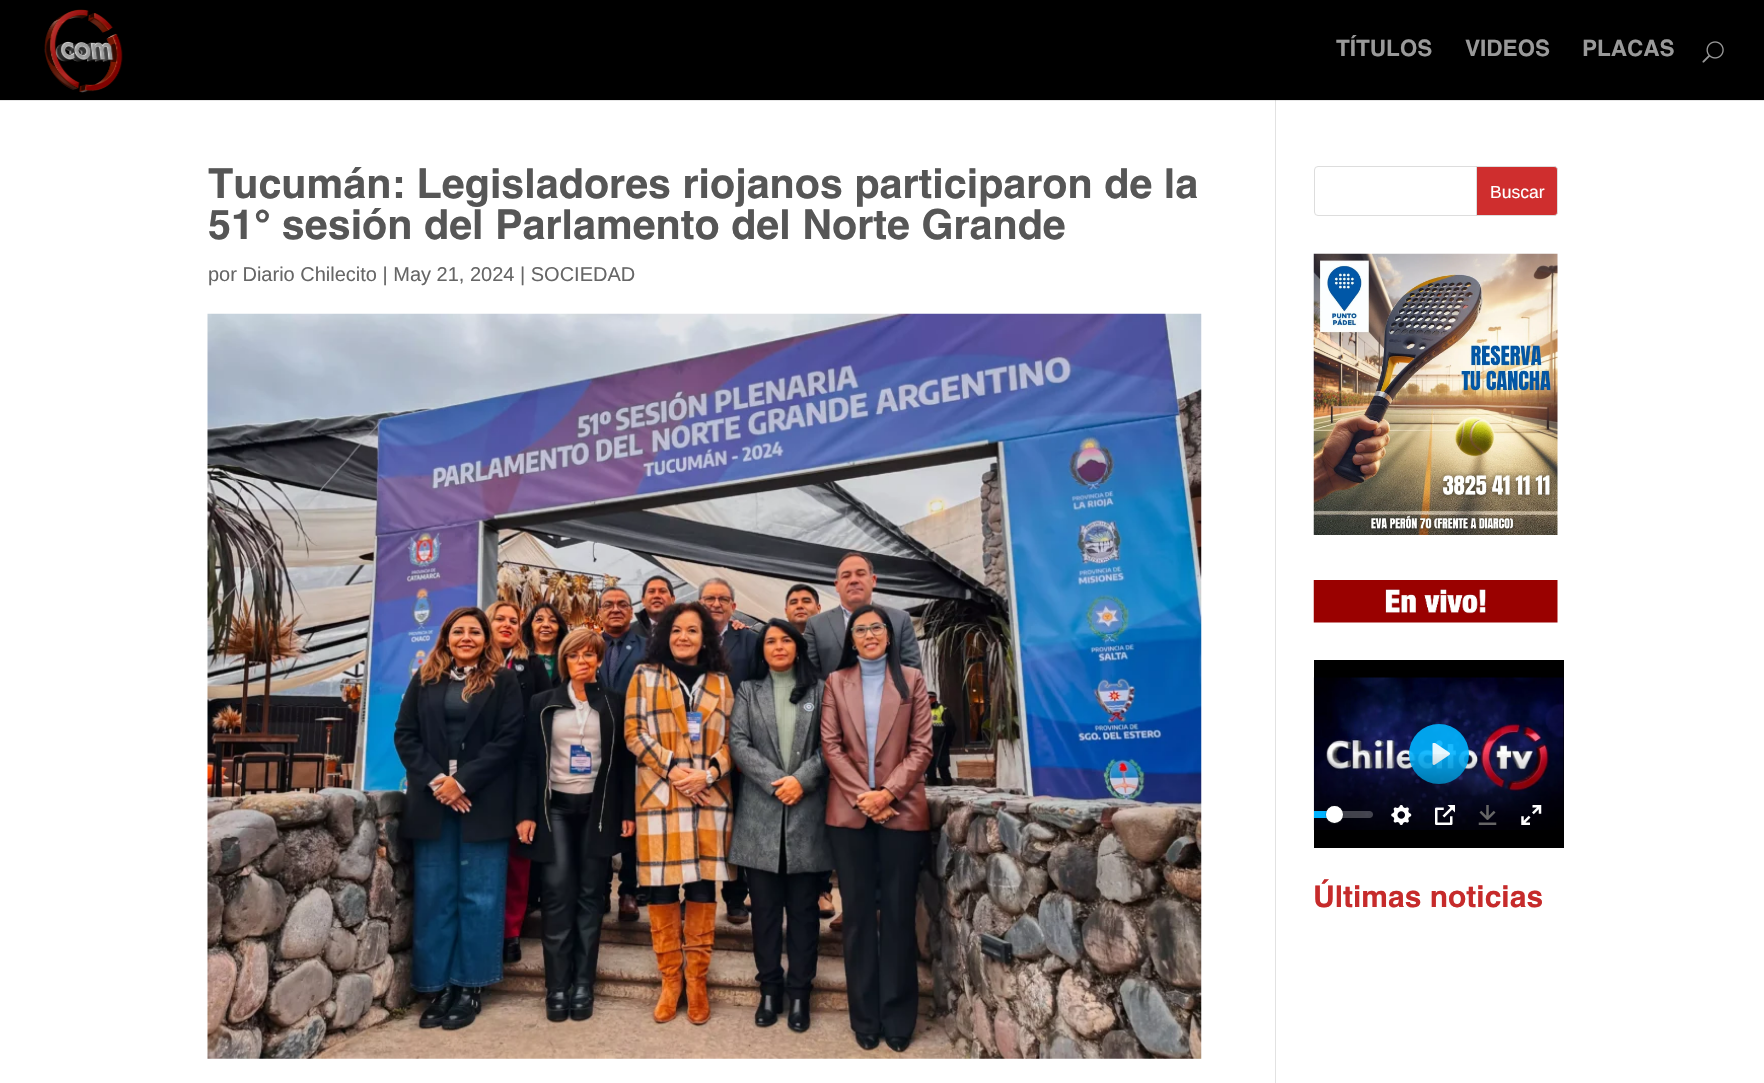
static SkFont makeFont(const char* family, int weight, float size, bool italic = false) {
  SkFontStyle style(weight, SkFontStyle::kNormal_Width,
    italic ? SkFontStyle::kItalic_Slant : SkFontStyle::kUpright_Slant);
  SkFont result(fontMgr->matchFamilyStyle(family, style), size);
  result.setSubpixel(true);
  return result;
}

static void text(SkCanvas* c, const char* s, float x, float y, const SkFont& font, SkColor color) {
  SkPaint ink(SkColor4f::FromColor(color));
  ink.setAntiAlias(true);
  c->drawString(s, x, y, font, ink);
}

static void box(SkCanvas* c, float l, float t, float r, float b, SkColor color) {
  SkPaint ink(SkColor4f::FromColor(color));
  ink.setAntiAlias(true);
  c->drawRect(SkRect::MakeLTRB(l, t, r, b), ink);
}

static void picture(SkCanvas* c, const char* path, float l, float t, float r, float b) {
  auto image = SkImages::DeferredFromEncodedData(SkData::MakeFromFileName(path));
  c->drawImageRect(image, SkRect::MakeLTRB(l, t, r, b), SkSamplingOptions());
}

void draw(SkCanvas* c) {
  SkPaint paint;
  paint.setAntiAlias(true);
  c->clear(0xffffffff);
  box(c, 0, 100, 1764, 101, 0xffe6e6e6);
  box(c, 1275, 94, 1276, 1083, 0xffe2e2e2);
  box(c, 0, 0, 1764, 100, 0xff000000);
  picture(c, "img_01.png", 44, 9, 123, 93);
  SkFont face1 = makeFont("Helvetica", 700, 22.5f);
  text(c, "TÍTULOS", 1336, 56, face1, 0xff999999);
  text(c, "VIDEOS", 1465, 56, face1, 0xff999999);
  text(c, "PLACAS", 1582, 56, face1, 0xff999999);
  picture(c, "img_02.png", 1702, 41, 1724, 63);
  box(c, 1275, 100, 1276, 101, 0xffcbcbcb);
  SkFont face2 = makeFont("Helvetica", 700, 41.25f);
  text(c, "Tucumán: Legisladores riojanos participaron de la", 208, 198, face2, 0xff565656);
  text(c, "51° sesión del Parlamento del Norte Grande", 208, 239, face2, 0xff565656);
  SkFont face3 = makeFont("Liberation Sans", 400, 20);
  text(c, "por Diario Chilecito | May 21, 2024 | SOCIEDAD", 208, 281, face3, 0xff666666);
  picture(c, "img_03.png", 207, 313, 1202, 1059);
  paint.setStyle(SkPaint::kStroke_Style);
  paint.setStrokeWidth(1);
  paint.setColor(0xffdddddd);
  c->drawRoundRect(SkRect::MakeLTRB(1314.5f, 166.5f, 1557.5f, 215.5f), 3.5f, 3.5f, paint);
  paint.setStyle(SkPaint::kFill_Style);
  paint.setColor(0xffcf2e2e);
  c->drawPath(SkPathBuilder().moveTo(1476.5f, 166.5f).lineTo(1554, 166.5f).cubicTo(1556, 166.5f, 1557.5f, 168, 1557.5f, 170).lineTo(1557.5f, 212).cubicTo(1557.5f, 214, 1556, 215.5f, 1554, 215.5f).lineTo(1476.5f, 215.5f).close().detach(), paint);
  paint.setStyle(SkPaint::kStroke_Style);
  paint.setColor(0xffdddddd);
  c->drawPath(SkPathBuilder().moveTo(1476.5f, 166.5f).lineTo(1554, 166.5f).cubicTo(1556, 166.5f, 1557.5f, 168, 1557.5f, 170).lineTo(1557.5f, 212).cubicTo(1557.5f, 214, 1556, 215.5f, 1554, 215.5f).lineTo(1476.5f, 215.5f).close().detach(), paint);
  SkFont face4 = makeFont("Liberation Sans", 400, 17.5f);
  text(c, "Buscar", 1490, 198, face4, 0xffffffff);
  picture(c, "img_04.png", 1313, 253, 1558, 535);
  picture(c, "img_05.png", 1313, 580, 1558, 623);
  box(c, 1314, 660, 1564, 848, 0xff000000);
  picture(c, "img_06.png", 1313, 677, 1564, 830);
  paint.setStyle(SkPaint::kFill_Style);
  paint.setColor(0xe600b2ff);
  c->drawCircle(1439, 754, 30, paint);
  picture(c, "img_07.png", 1432, 743, 1450, 765);
  {
    const SkColor colors[] = {0x00000000, 0xbf000000};
    const float stops[] = {0, 1};
    const SkPoint ends[] = {{1439, 751}, {1439, 848}};
    paint.setShader(SkGradientShader::MakeLinear(ends, colors, stops, 2, SkTileMode::kClamp));
    paint.setAlpha(255);
  }
  c->drawRect(SkRect::MakeLTRB(1314, 754, 1564, 830), paint);
  paint.setShader(nullptr);
  paint.setColor(0x40ffffff);
  c->drawPath(SkPathBuilder().moveTo(1314, 811).lineTo(1369.5f, 811).cubicTo(1371.5f, 811, 1373, 812.5f, 1373, 814.5f).cubicTo(1373, 816.5f, 1371.5f, 818, 1369.5f, 818).lineTo(1314, 818).close().detach(), paint);
  box(c, 1314, 811, 1335, 818, 0xff00b2ff);
  paint.setStyle(SkPaint::kStroke_Style);
  paint.setColor(0x3323282f);
  c->drawCircle(1334.5f, 814.5f, 9, paint);
  paint.setStyle(SkPaint::kFill_Style);
  paint.setColor(0x2623282f);
  paint.setMaskFilter(SkMaskFilter::MakeBlur(kNormal_SkBlurStyle, 0.5f));
  c->drawRoundRect(SkRect::MakeLTRB(1326, 808, 1343, 824), 8, 8, paint);
  paint.setMaskFilter(nullptr);
  paint.setColor(0xffffffff);
  c->drawCircle(1334.5f, 814.5f, 8.5f, paint);
  picture(c, "img_08.png", 1391, 805, 1412, 825);
  picture(c, "img_09.png", 1435, 805, 1455, 825);
  picture(c, "img_10.png", 1478, 805, 1497, 825);
  picture(c, "img_11.png", 1521, 805, 1542, 825);
  SkFont face5 = makeFont("Helvetica", 700, 30);
  text(c, "Últimas noticias", 1313, 907, face5, 0xffc62b2b);
}
